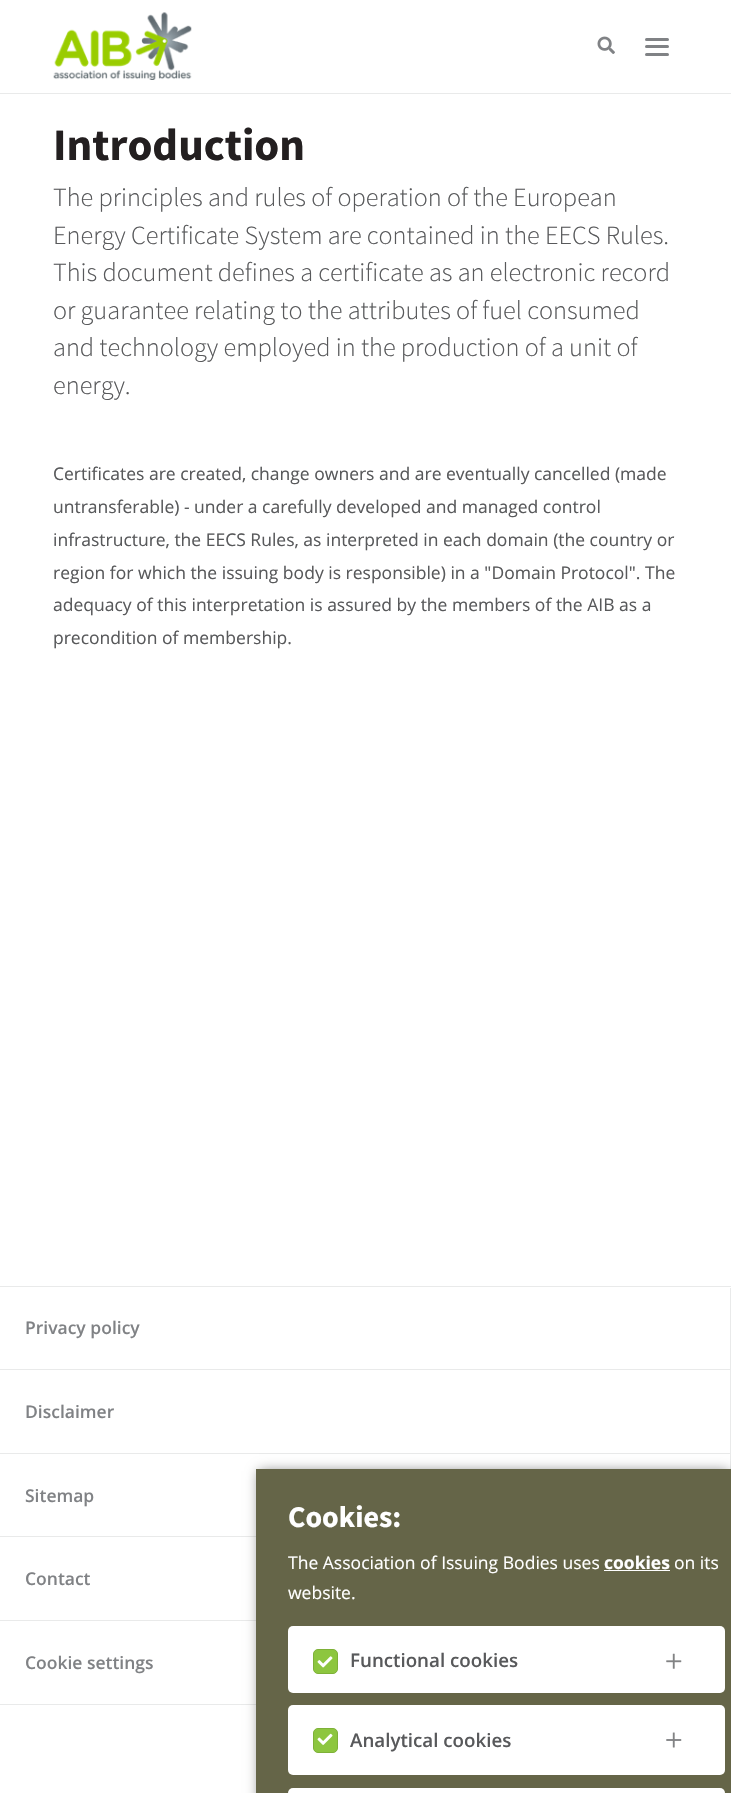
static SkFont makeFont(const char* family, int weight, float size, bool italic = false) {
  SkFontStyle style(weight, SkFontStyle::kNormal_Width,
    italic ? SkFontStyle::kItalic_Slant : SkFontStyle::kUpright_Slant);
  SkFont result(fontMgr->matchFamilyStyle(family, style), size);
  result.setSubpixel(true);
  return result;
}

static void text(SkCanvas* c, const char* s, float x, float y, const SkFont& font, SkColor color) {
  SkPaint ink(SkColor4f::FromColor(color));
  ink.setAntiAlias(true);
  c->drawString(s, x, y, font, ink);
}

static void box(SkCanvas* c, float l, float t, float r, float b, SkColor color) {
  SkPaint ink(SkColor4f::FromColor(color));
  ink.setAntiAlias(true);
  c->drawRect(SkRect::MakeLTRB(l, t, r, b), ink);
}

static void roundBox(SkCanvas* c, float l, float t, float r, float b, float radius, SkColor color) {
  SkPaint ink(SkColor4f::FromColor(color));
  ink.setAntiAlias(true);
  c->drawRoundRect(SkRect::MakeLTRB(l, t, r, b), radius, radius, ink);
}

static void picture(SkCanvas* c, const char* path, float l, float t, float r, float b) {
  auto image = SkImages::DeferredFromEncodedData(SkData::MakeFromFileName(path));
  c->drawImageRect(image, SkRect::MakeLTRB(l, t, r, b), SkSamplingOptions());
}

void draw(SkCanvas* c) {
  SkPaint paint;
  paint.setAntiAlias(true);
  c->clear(0xffffffff);
  box(c, 0, 93, 731, 94, 0xffe9eaea);
  picture(c, "img_01.png", 53, 12, 192, 80);
  picture(c, "img_02.png", 597, 36, 615, 54);
  roundBox(c, 645, 45, 669, 48, 1.5f, 0xff808285);
  roundBox(c, 645, 38, 669, 41, 1.5f, 0xff808285);
  roundBox(c, 645, 53, 669, 56, 1.5f, 0xff808285);
  SkFont face1 = makeFont("Source Sans Pro", 700, 45);
  text(c, "Introduction", 53, 160, face1, 0xff231f20);
  SkFont face2 = makeFont("Source Sans Pro", 300, 26.25f);
  text(c, "The principles and rules of operation of the European", 53, 206, face2, 0xff58595b);
  text(c, "Energy Certificate System are contained in the EECS Rules.", 53, 244, face2, 0xff58595b);
  text(c, "This document defines a certificate as an electronic record", 53, 281, face2, 0xff58595b);
  text(c, "or guarantee relating to the attributes of fuel consumed", 53, 319, face2, 0xff58595b);
  text(c, "and technology employed in the production of a unit of", 53, 356, face2, 0xff58595b);
  text(c, "energy.", 53, 394, face2, 0xff58595b);
  SkFont face3 = makeFont("Open Sans", 400, 17.5f);
  text(c, "Certificates are created, change owners and are eventually cancelled (made", 53, 480, face3, 0xff58595b);
  text(c, "untransferable) - under a carefully developed and managed control", 53, 513, face3, 0xff58595b);
  text(c, "infrastructure, the EECS Rules, as interpreted in each domain (the country or", 53, 546, face3, 0xff58595b);
  text(c, "region for which the issuing body is responsible) in a \"Domain Protocol\". The", 53, 579, face3, 0xff58595b);
  text(c, "adequacy of this interpretation is assured by the members of the AIB as a", 53, 611, face3, 0xff58595b);
  text(c, "precondition of membership.", 53, 644, face3, 0xff58595b);
  box(c, 0, 1286, 731, 1287, 0xffe9eaea);
  box(c, 730, 1288, 731, 1469, 0xffe9eaea);
  box(c, 0, 1369, 730, 1370, 0xffe9eaea);
  SkFont face4 = makeFont("Open Sans", 600, 17.5f);
  text(c, "Privacy policy", 25, 1334, face4, 0xff808285);
  box(c, 0, 1453, 730, 1454, 0xffe9eaea);
  text(c, "Disclaimer", 25, 1418, face4, 0xff808285);
  box(c, 0, 1536, 256, 1537, 0xffe9eaea);
  text(c, "Sitemap", 25, 1502, face4, 0xff808285);
  box(c, 0, 1620, 256, 1621, 0xffe9eaea);
  text(c, "Contact", 25, 1585, face4, 0xff808285);
  box(c, 0, 1704, 256, 1705, 0xffe9eaea);
  text(c, "Cookie settings", 25, 1669, face4, 0xff808285);
  paint.setColor(0x80000000);
  paint.setMaskFilter(SkMaskFilter::MakeBlur(kNormal_SkBlurStyle, 6));
  c->drawRect(SkRect::MakeLTRB(259, 1471, 729, 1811), paint);
  paint.setMaskFilter(nullptr);
  box(c, 256, 1469, 731, 1793, 0xff656548);
  SkFont face5 = makeFont("Source Sans Pro", 700, 30);
  text(c, "Cookies:", 288, 1527, face5, 0xffffffff);
  text(c, "The Association of Issuing Bodies uses", 288, 1569, face3, 0xffffffff);
  SkFont face6 = makeFont("Open Sans", 700, 17.5f);
  text(c, "cookies", 604, 1569, face6, 0xffffffff);
  box(c, 604, 1570, 670, 1571, 0xffffffff);
  text(c, "on its", 674, 1569, face3, 0xffffffff);
  text(c, "website.", 288, 1599, face3, 0xffffffff);
  roundBox(c, 288, 1626, 725, 1693, 5, 0xffffffff);
  paint.setColor(0xff8dc63f);
  c->drawRoundRect(SkRect::MakeLTRB(313.5f, 1649.5f, 337.5f, 1673.5f), 4.5f, 4.5f, paint);
  paint.setStyle(SkPaint::kStroke_Style);
  paint.setStrokeWidth(1);
  paint.setColor(0xff7eb138);
  c->drawRoundRect(SkRect::MakeLTRB(313.5f, 1649.5f, 337.5f, 1673.5f), 4.5f, 4.5f, paint);
  SkFont face7 = makeFont("Open Sans", 600, 18.75f);
  text(c, "Functional cookies", 350, 1667, face7, 0xff58595b);
  picture(c, "img_03.png", 317, 1656, 333, 1668);
  picture(c, "img_04.png", 666, 1653, 682, 1669);
  roundBox(c, 288, 1705, 725, 1775, 5, 0xffffffff);
  paint.setStyle(SkPaint::kFill_Style);
  paint.setColor(0xff8dc63f);
  c->drawRoundRect(SkRect::MakeLTRB(313.5f, 1728.5f, 337.5f, 1752.5f), 4.5f, 4.5f, paint);
  paint.setStyle(SkPaint::kStroke_Style);
  paint.setColor(0xff7eb138);
  c->drawRoundRect(SkRect::MakeLTRB(313.5f, 1728.5f, 337.5f, 1752.5f), 4.5f, 4.5f, paint);
  text(c, "Analytical cookies", 350, 1747, face7, 0xff58595b);
  picture(c, "img_05.png", 317, 1733, 333, 1745);
  picture(c, "img_06.png", 666, 1732, 682, 1748);
  roundBox(c, 288, 1788, 725, 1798, 5, 0xffffffff);
}
